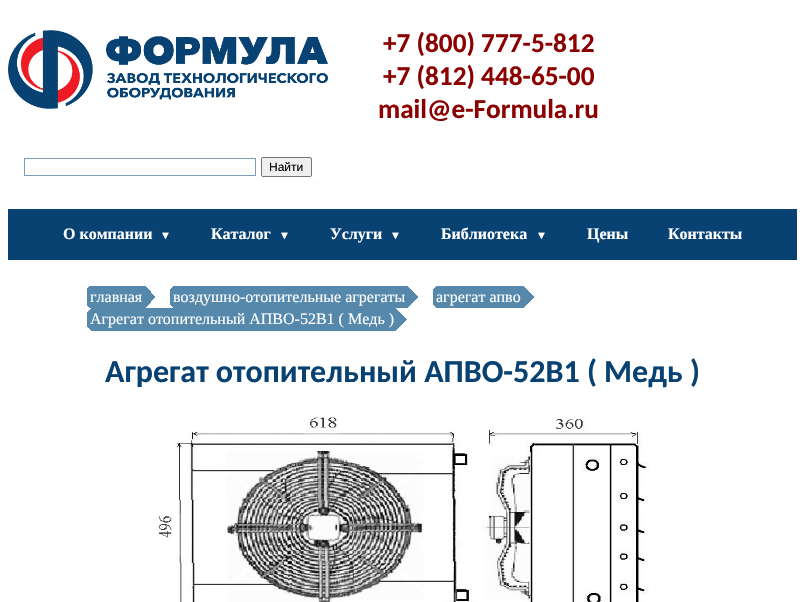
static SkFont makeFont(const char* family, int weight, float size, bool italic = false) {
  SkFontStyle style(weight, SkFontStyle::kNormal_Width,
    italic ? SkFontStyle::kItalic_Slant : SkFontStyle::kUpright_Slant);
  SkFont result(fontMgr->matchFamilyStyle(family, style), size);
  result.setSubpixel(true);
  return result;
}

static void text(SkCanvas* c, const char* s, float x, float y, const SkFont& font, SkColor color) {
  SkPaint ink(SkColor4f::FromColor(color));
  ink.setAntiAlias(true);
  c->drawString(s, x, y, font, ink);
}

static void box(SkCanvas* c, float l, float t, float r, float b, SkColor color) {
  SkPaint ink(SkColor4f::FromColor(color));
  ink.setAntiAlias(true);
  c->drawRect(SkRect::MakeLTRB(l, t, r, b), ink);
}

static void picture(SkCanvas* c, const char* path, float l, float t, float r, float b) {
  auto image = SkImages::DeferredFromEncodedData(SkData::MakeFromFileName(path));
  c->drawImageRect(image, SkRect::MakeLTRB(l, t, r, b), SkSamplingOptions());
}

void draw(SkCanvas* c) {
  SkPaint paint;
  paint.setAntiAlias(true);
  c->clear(0xffffffff);
  picture(c, "img_01.png", 8, 30, 328, 109);
  SkFont face1 = makeFont("Carlito", 700, 27.25f);
  text(c, "+7 (800) 777-5-812", 383, 52, face1, 0xff8b0000);
  text(c, "+7 (812) 448-65-00", 383, 85, face1, 0xff8b0000);
  text(c, "mail@e-Formula.ru", 378, 118, face1, 0xff8b0000);
  paint.setStyle(SkPaint::kStroke_Style);
  paint.setStrokeWidth(1);
  paint.setColor(0xff7f9db9);
  c->drawRect(SkRect::MakeLTRB(24.5f, 158.5f, 255.5f, 175.5f), paint);
  paint.setStyle(SkPaint::kFill_Style);
  paint.setColor(0xffefefef);
  c->drawRoundRect(SkRect::MakeLTRB(261.5f, 157.5f, 311.5f, 176.5f), 1.5f, 1.5f, paint);
  paint.setStyle(SkPaint::kStroke_Style);
  paint.setColor(0xff767676);
  c->drawRoundRect(SkRect::MakeLTRB(261.5f, 157.5f, 311.5f, 176.5f), 1.5f, 1.5f, paint);
  SkFont face2 = makeFont("Liberation Sans", 400, 12);
  text(c, "Найти", 269, 171, face2, 0xff000000);
  box(c, 317, 182, 318, 183, 0xffdddddd);
  box(c, 8, 209, 797, 260, 0xff084272);
  SkFont face3 = makeFont("Liberation Serif", 700, 16);
  text(c, "О компании", 63, 239, face3, 0xffffffff);
  SkFont face4 = makeFont("Liberation Serif", 700, 11);
  text(c, "▼", 160, 239, face4, 0xffffffff);
  text(c, "Каталог", 211, 239, face3, 0xffffffff);
  text(c, "▼", 279, 239, face4, 0xffffffff);
  text(c, "Услуги", 330, 239, face3, 0xffffffff);
  text(c, "▼", 390, 239, face4, 0xffffffff);
  text(c, "Библиотека", 441, 239, face3, 0xffffffff);
  text(c, "▼", 536, 239, face4, 0xffffffff);
  text(c, "Цены", 587, 239, face3, 0xffffffff);
  text(c, "Контакты", 668, 239, face3, 0xffffffff);
  paint.setStyle(SkPaint::kFill_Style);
  {
    const SkColor colors[] = {0xffffffff, 0xff5588aa};
    const float stops[] = {0.05f, 0.05f};
    const SkPoint ends[] = {{94, 315}, {120, 290}};
    paint.setShader(SkGradientShader::MakeLinear(ends, colors, stops, 2, SkTileMode::kClamp));
    paint.setAlpha(255);
  }
  c->drawRect(SkRect::MakeLTRB(87, 297, 126, 308), paint);
  {
    const SkColor colors[] = {0x005588aa, 0xff5588aa};
    const float stops[] = {0.41f, 0.41f};
    const SkPoint ends[] = {{159, 315}, {133, 290}};
    paint.setShader(SkGradientShader::MakeLinear(ends, colors, stops, 2, SkTileMode::kClamp));
    paint.setAlpha(255);
  }
  c->drawRect(SkRect::MakeLTRB(126, 297, 155, 308), paint);
  {
    const SkColor colors[] = {0xffffffff, 0xff5588aa};
    const float stops[] = {0.41f, 0.41f};
    const SkPoint ends[] = {{159, 279}, {133, 304}};
    paint.setShader(SkGradientShader::MakeLinear(ends, colors, stops, 2, SkTileMode::kClamp));
    paint.setAlpha(255);
  }
  c->drawRect(SkRect::MakeLTRB(127, 286, 155, 297), paint);
  {
    const SkColor colors[] = {0x005588aa, 0xff5588aa};
    const float stops[] = {0.05f, 0.05f};
    const SkPoint ends[] = {{94, 279}, {120, 304}};
    paint.setShader(SkGradientShader::MakeLinear(ends, colors, stops, 2, SkTileMode::kClamp));
    paint.setAlpha(255);
  }
  c->drawRect(SkRect::MakeLTRB(87, 286, 127, 297), paint);
  SkFont face5 = makeFont("Liberation Serif", 400, 16);
  text(c, "главная", 90, 302, face5, 0xffffffff);
  {
    const SkColor colors[] = {0xffffffff, 0xff5588aa};
    const float stops[] = {0.02f, 0.02f};
    const SkPoint ends[] = {{200, 338}, {272, 267}};
    paint.setShader(SkGradientShader::MakeLinear(ends, colors, stops, 2, SkTileMode::kClamp));
    paint.setAlpha(255);
  }
  c->drawRect(SkRect::MakeLTRB(170, 297, 297, 308), paint);
  {
    const SkColor colors[] = {0x005588aa, 0xff5588aa};
    const float stops[] = {0.15f, 0.15f};
    const SkPoint ends[] = {{399, 338}, {327, 267}};
    paint.setShader(SkGradientShader::MakeLinear(ends, colors, stops, 2, SkTileMode::kClamp));
    paint.setAlpha(255);
  }
  c->drawRect(SkRect::MakeLTRB(297, 297, 418, 308), paint);
  {
    const SkColor colors[] = {0xffffffff, 0xff5588aa};
    const float stops[] = {0.15f, 0.15f};
    const SkPoint ends[] = {{399, 256}, {327, 327}};
    paint.setShader(SkGradientShader::MakeLinear(ends, colors, stops, 2, SkTileMode::kClamp));
    paint.setAlpha(255);
  }
  c->drawRect(SkRect::MakeLTRB(302, 286, 418, 297), paint);
  {
    const SkColor colors[] = {0x005588aa, 0xff5588aa};
    const float stops[] = {0.02f, 0.02f};
    const SkPoint ends[] = {{200, 256}, {272, 327}};
    paint.setShader(SkGradientShader::MakeLinear(ends, colors, stops, 2, SkTileMode::kClamp));
    paint.setAlpha(255);
  }
  c->drawRect(SkRect::MakeLTRB(170, 286, 302, 297), paint);
  text(c, "воздушно-отопительные агрегаты", 173, 302, face5, 0xffffffff);
  {
    const SkColor colors[] = {0xffffffff, 0xff5588aa};
    const float stops[] = {0.04f, 0.04f};
    const SkPoint ends[] = {{444, 319}, {479, 285}};
    paint.setShader(SkGradientShader::MakeLinear(ends, colors, stops, 2, SkTileMode::kClamp));
    paint.setAlpha(255);
  }
  c->drawRect(SkRect::MakeLTRB(433, 297, 488, 308), paint);
  {
    const SkColor colors[] = {0x005588aa, 0xff5588aa};
    const float stops[] = {0.31f, 0.31f};
    const SkPoint ends[] = {{534, 319}, {499, 285}};
    paint.setShader(SkGradientShader::MakeLinear(ends, colors, stops, 2, SkTileMode::kClamp));
    paint.setAlpha(255);
  }
  c->drawRect(SkRect::MakeLTRB(488, 297, 534, 308), paint);
  {
    const SkColor colors[] = {0xffffffff, 0xff5588aa};
    const float stops[] = {0.31f, 0.31f};
    const SkPoint ends[] = {{534, 275}, {499, 309}};
    paint.setShader(SkGradientShader::MakeLinear(ends, colors, stops, 2, SkTileMode::kClamp));
    paint.setAlpha(255);
  }
  c->drawRect(SkRect::MakeLTRB(490, 286, 534, 297), paint);
  {
    const SkColor colors[] = {0x005588aa, 0xff5588aa};
    const float stops[] = {0.04f, 0.04f};
    const SkPoint ends[] = {{444, 275}, {479, 309}};
    paint.setShader(SkGradientShader::MakeLinear(ends, colors, stops, 2, SkTileMode::kClamp));
    paint.setAlpha(255);
  }
  c->drawRect(SkRect::MakeLTRB(433, 286, 490, 297), paint);
  text(c, "агрегат апво", 436, 302, face5, 0xffffffff);
  {
    const SkColor colors[] = {0xffffffff, 0xff5588aa};
    const float stops[] = {0.02f, 0.02f};
    const SkPoint ends[] = {{126, 370}, {217, 280}};
    paint.setShader(SkGradientShader::MakeLinear(ends, colors, stops, 2, SkTileMode::kClamp));
    paint.setAlpha(255);
  }
  c->drawRect(SkRect::MakeLTRB(87, 320, 249, 331), paint);
  {
    const SkColor colors[] = {0x005588aa, 0xff5588aa};
    const float stops[] = {0.12f, 0.12f};
    const SkPoint ends[] = {{379, 370}, {288, 280}};
    paint.setShader(SkGradientShader::MakeLinear(ends, colors, stops, 2, SkTileMode::kClamp));
    paint.setAlpha(255);
  }
  c->drawRect(SkRect::MakeLTRB(249, 320, 406, 331), paint);
  {
    const SkColor colors[] = {0x005588aa, 0xff5588aa};
    const float stops[] = {0.12f, 0.12f};
    const SkPoint ends[] = {{379, 269}, {288, 359}};
    paint.setShader(SkGradientShader::MakeLinear(ends, colors, stops, 2, SkTileMode::kClamp));
    paint.setAlpha(255);
  }
  c->drawRect(SkRect::MakeLTRB(256, 308, 407, 320), paint);
  {
    const SkColor colors[] = {0x005588aa, 0xff5588aa};
    const float stops[] = {0.02f, 0.02f};
    const SkPoint ends[] = {{126, 269}, {217, 359}};
    paint.setShader(SkGradientShader::MakeLinear(ends, colors, stops, 2, SkTileMode::kClamp));
    paint.setAlpha(255);
  }
  c->drawRect(SkRect::MakeLTRB(87, 308, 256, 320), paint);
  text(c, "Агрегат отопительный АПВО-52В1 ( Медь )", 90, 324, face5, 0xffffffff);
  SkFont face6 = makeFont("Carlito", 700, 32);
  text(c, "Агрегат отопительный АПВО-52В1 ( Медь )", 105, 382, face6, 0xff084272);
  picture(c, "img_02.png", 154, 417, 649, 602);
}
